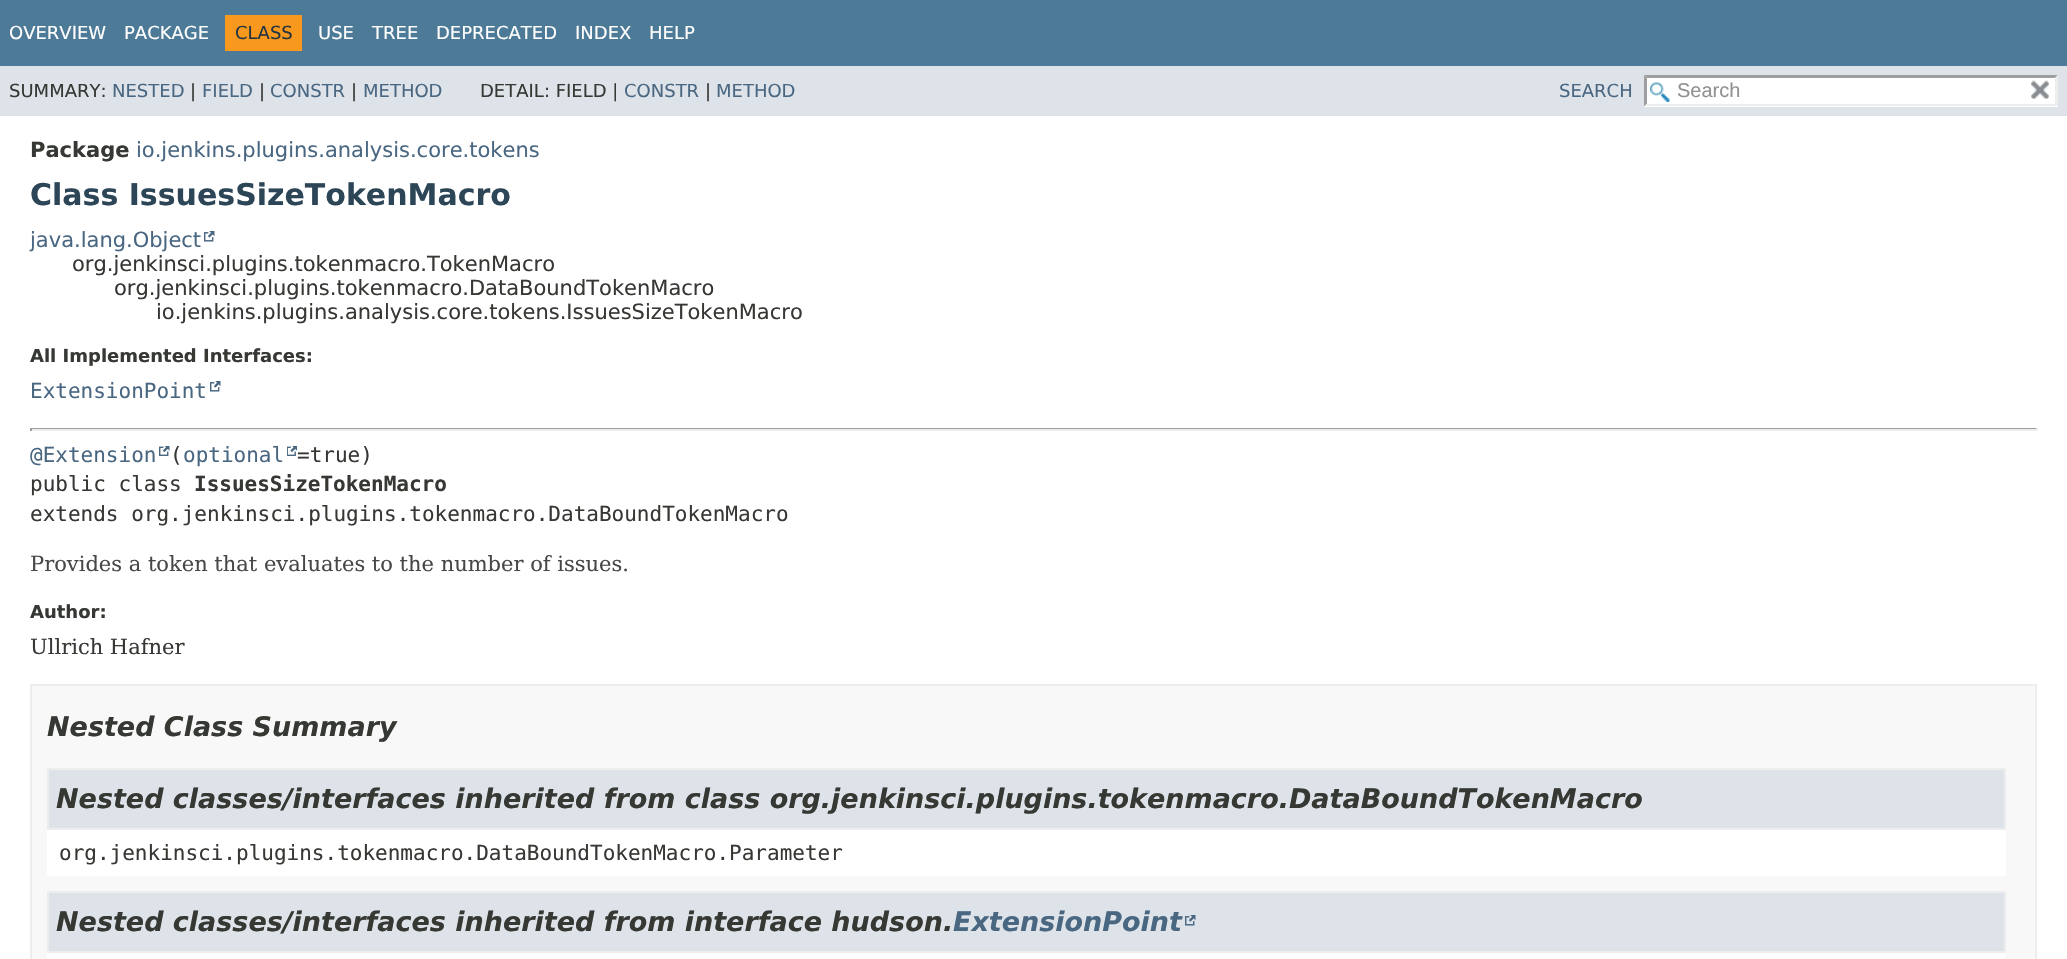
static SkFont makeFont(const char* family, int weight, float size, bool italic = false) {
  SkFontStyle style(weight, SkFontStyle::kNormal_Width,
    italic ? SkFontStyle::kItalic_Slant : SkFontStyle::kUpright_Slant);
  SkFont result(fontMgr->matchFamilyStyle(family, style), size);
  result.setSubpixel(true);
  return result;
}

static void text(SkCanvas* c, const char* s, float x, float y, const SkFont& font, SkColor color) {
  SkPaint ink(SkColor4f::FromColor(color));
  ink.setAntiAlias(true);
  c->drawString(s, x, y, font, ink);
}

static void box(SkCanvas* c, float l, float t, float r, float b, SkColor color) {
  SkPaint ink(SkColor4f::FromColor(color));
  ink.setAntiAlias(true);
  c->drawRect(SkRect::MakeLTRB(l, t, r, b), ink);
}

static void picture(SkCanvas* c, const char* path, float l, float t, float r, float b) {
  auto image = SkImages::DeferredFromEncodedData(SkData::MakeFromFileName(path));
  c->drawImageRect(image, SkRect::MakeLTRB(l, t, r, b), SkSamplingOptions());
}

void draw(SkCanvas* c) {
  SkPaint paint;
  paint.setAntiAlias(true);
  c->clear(0xffffffff);
  box(c, 0, 0, 2067, 66, 0xff4d7a97);
  SkFont face1 = makeFont("DejaVu Sans", 400, 18);
  text(c, "OVERVIEW", 9, 39, face1, 0xffffffff);
  text(c, "PACKAGE", 124, 39, face1, 0xffffffff);
  box(c, 225, 15, 302, 51, 0xfff8981d);
  text(c, "CLASS", 235, 39, face1, 0xff253441);
  text(c, "USE", 318, 39, face1, 0xffffffff);
  text(c, "TREE", 372, 39, face1, 0xffffffff);
  text(c, "DEPRECATED", 436, 39, face1, 0xffffffff);
  text(c, "INDEX", 575, 39, face1, 0xffffffff);
  text(c, "HELP", 649, 39, face1, 0xffffffff);
  box(c, 0, 66, 2067, 116, 0xffdee3e9);
  text(c, "SUMMARY:", 9, 97, face1, 0xff353833);
  text(c, "NESTED", 112, 97, face1, 0xff4a6782);
  text(c, "|", 190, 97, face1, 0xff353833);
  text(c, "FIELD", 202, 97, face1, 0xff4a6782);
  text(c, "|", 259, 97, face1, 0xff353833);
  text(c, "CONSTR", 270, 97, face1, 0xff4a6782);
  text(c, "|", 351, 97, face1, 0xff353833);
  text(c, "METHOD", 363, 97, face1, 0xff4a6782);
  text(c, "DETAIL: FIELD |", 480, 97, face1, 0xff353833);
  text(c, "CONSTR", 624, 97, face1, 0xff4a6782);
  text(c, "|", 705, 97, face1, 0xff353833);
  text(c, "METHOD", 716, 97, face1, 0xff4a6782);
  text(c, "SEARCH", 1559, 97, face1, 0xff4a6782);
  box(c, 1644, 75, 2058, 107, 0xffffffff);
  picture(c, "img_01.png", 1650, 82, 1670, 102);
  paint.setColor(0xff9e9e9e);
  c->drawPath(SkPathBuilder().moveTo(1644, 75).lineTo(2058, 75).lineTo(2055, 78).lineTo(1647, 78).close().detach(), paint);
  paint.setColor(0xffededed);
  c->drawPath(SkPathBuilder().moveTo(2058, 75).lineTo(2058, 106.5f).lineTo(2055, 103.5f).lineTo(2055, 78).close().detach(), paint);
  c->drawPath(SkPathBuilder().moveTo(2058, 106).lineTo(1644, 106).lineTo(1647, 104).lineTo(2055, 104).close().detach(), paint);
  paint.setColor(0xff9e9e9e);
  c->drawPath(SkPathBuilder().moveTo(1644, 106.5f).lineTo(1644, 75).lineTo(1647, 78).lineTo(1647, 103.5f).close().detach(), paint);
  SkFont face2 = makeFont("Liberation Sans", 400, 20);
  text(c, "Search", 1677, 97, face2, 0xff909090);
  picture(c, "img_02.png", 2031, 80, 2049, 99);
  SkFont face3 = makeFont("DejaVu Sans", 700, 21);
  text(c, "Package", 30, 157, face3, 0xff353833);
  SkFont face4 = makeFont("DejaVu Sans", 400, 21);
  text(c, "io.jenkins.plugins.analysis.core.tokens", 136, 157, face4, 0xff4a6782);
  SkFont face5 = makeFont("DejaVu Sans", 700, 30);
  text(c, "Class IssuesSizeTokenMacro", 30, 205, face5, 0xff2c4557);
  text(c, "java.lang.Object", 30, 247, face4, 0xff4a6782);
  picture(c, "img_03.png", 204, 231, 215, 242);
  text(c, "org.jenkinsci.plugins.tokenmacro.TokenMacro", 72, 271, face4, 0xff353833);
  text(c, "org.jenkinsci.plugins.tokenmacro.DataBoundTokenMacro", 114, 295, face4, 0xff353833);
  text(c, "io.jenkins.plugins.analysis.core.tokens.IssuesSizeTokenMacro", 156, 319, face4, 0xff353833);
  SkFont face6 = makeFont("DejaVu Sans", 700, 18);
  text(c, "All Implemented Interfaces:", 30, 362, face6, 0xff353833);
  SkFont face7 = makeFont("DejaVu Sans Mono", 400, 21);
  text(c, "ExtensionPoint", 30, 398, face7, 0xff4a6782);
  picture(c, "img_03.png", 210, 381, 221, 392);
  box(c, 30, 428, 2037, 429, 0xff9f9f9f);
  box(c, 2036, 428, 2038, 431, 0xffeeeeee);
  box(c, 30, 429, 2037, 431, 0xffeeeeee);
  box(c, 30, 428, 32, 431, 0xff9f9f9f);
  text(c, "@Extension", 30, 462, face7, 0xff4a6782);
  picture(c, "img_04.png", 159, 446, 170, 456);
  text(c, "(", 170, 462, face7, 0xff353833);
  text(c, "optional", 183, 462, face7, 0xff4a6782);
  picture(c, "img_05.png", 287, 446, 297, 456);
  text(c, "=true)", 297, 462, face7, 0xff353833);
  text(c, "public class", 30, 491, face7, 0xff353833);
  SkFont face8 = makeFont("DejaVu Sans Mono", 700, 21);
  text(c, "IssuesSizeTokenMacro", 194, 491, face8, 0xff353833);
  text(c, "extends org.jenkinsci.plugins.tokenmacro.DataBoundTokenMacro", 30, 521, face7, 0xff353833);
  SkFont face9 = makeFont("DejaVu Serif", 400, 21);
  text(c, "Provides a token that evaluates to the number of issues.", 30, 571, face9, 0xff474747);
  text(c, "Author:", 30, 618, face6, 0xff353833);
  text(c, "Ullrich Hafner", 30, 654, face9, 0xff353833);
  paint.setColor(0xfff8f8f8);
  c->drawRect(SkRect::MakeLTRB(31, 685, 2036, 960), paint);
  paint.setStyle(SkPaint::kStroke_Style);
  paint.setStrokeWidth(2);
  paint.setColor(0xffededed);
  c->drawRect(SkRect::MakeLTRB(31, 685, 2036, 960), paint);
  SkFont face10 = makeFont("DejaVu Sans", 700, 26.98f, true);
  text(c, "Nested Class Summary", 47, 736, face10, 0xff353833);
  box(c, 47, 830, 2006, 876, 0xffffffff);
  paint.setStyle(SkPaint::kFill_Style);
  paint.setColor(0xffdee3e9);
  c->drawRect(SkRect::MakeLTRB(48, 769, 2005, 829), paint);
  paint.setStyle(SkPaint::kStroke_Style);
  paint.setColor(0xffededed);
  c->drawRect(SkRect::MakeLTRB(48, 769, 2005, 829), paint);
  text(c, "Nested classes/interfaces inherited from class org.jenkinsci.plugins.tokenmacro.DataBoundTokenMacro", 56, 808, face10, 0xff353833);
  text(c, "org.jenkinsci.plugins.tokenmacro.DataBoundTokenMacro.Parameter", 59, 860, face7, 0xff353833);
  box(c, 47, 953, 2006, 959, 0xffffffff);
  paint.setStyle(SkPaint::kFill_Style);
  paint.setColor(0xffdee3e9);
  c->drawRect(SkRect::MakeLTRB(48, 892, 2005, 952), paint);
  paint.setStyle(SkPaint::kStroke_Style);
  paint.setColor(0xffededed);
  c->drawRect(SkRect::MakeLTRB(48, 892, 2005, 952), paint);
  text(c, "Nested classes/interfaces inherited from interface hudson.", 56, 931, face10, 0xff353833);
  text(c, "ExtensionPoint", 953, 931, face10, 0xff4a6782);
  picture(c, "img_06.png", 1185, 915, 1196, 926);
}
